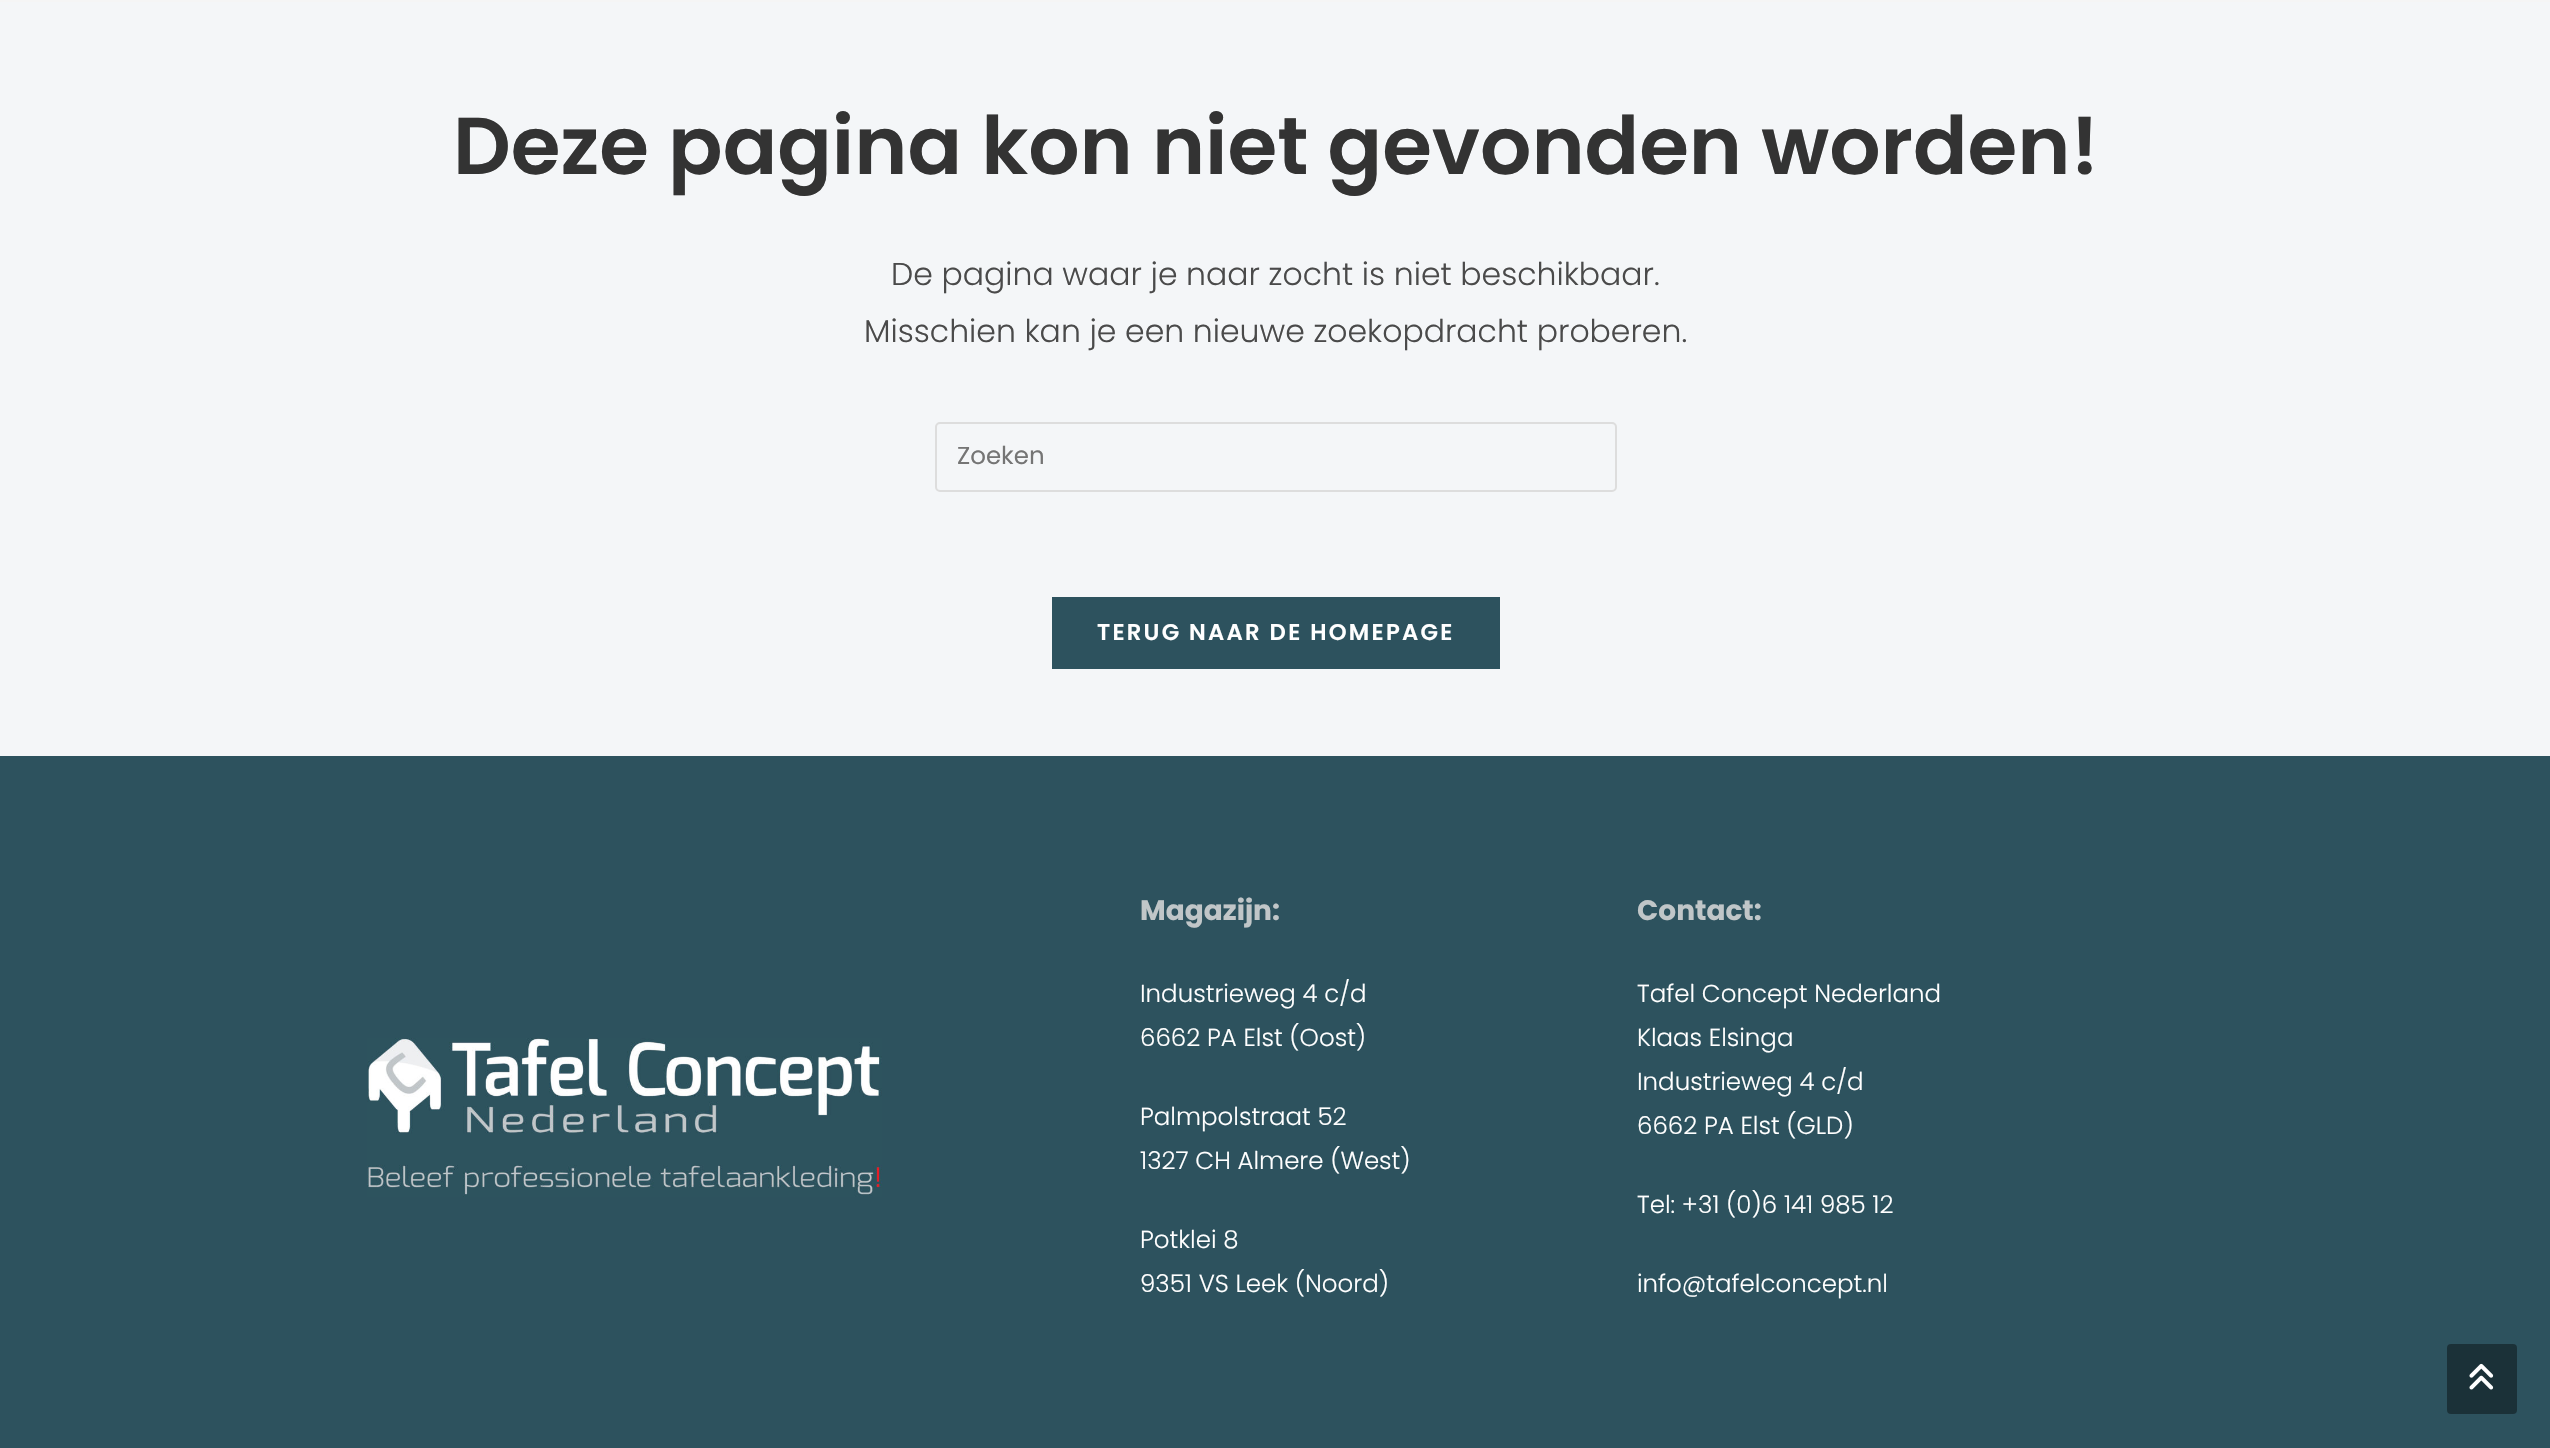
static SkFont makeFont(const char* family, int weight, float size, bool italic = false) {
  SkFontStyle style(weight, SkFontStyle::kNormal_Width,
    italic ? SkFontStyle::kItalic_Slant : SkFontStyle::kUpright_Slant);
  SkFont result(fontMgr->matchFamilyStyle(family, style), size);
  result.setSubpixel(true);
  return result;
}

static void text(SkCanvas* c, const char* s, float x, float y, const SkFont& font, SkColor color) {
  SkPaint ink(SkColor4f::FromColor(color));
  ink.setAntiAlias(true);
  c->drawString(s, x, y, font, ink);
}

static void spacedText(SkCanvas* c, const char* s, float x, float y, const SkFont& font, const SkPaint& ink, float letter, float word) {
  std::vector<SkGlyphID> glyphs(font.countText(s, strlen(s), SkTextEncoding::kUTF8));
  std::vector<float> xs(glyphs.size());
  font.textToGlyphs(s, strlen(s), SkTextEncoding::kUTF8, glyphs);
  font.getXPos(glyphs, xs, x);
  float extra = 0;
  for (size_t i = 0; i < glyphs.size(); i++) {
    xs[i] += extra;
    extra += letter + word * (glyphs[i] == font.unicharToGlyph(' '));
  }
  c->drawTextBlob(SkTextBlob::MakeFromPosHGlyphs(glyphs, xs, y, font), 0, 0, ink);
}

static void box(SkCanvas* c, float l, float t, float r, float b, SkColor color) {
  SkPaint ink(SkColor4f::FromColor(color));
  ink.setAntiAlias(true);
  c->drawRect(SkRect::MakeLTRB(l, t, r, b), ink);
}

static void roundBox(SkCanvas* c, float l, float t, float r, float b, float radius, SkColor color) {
  SkPaint ink(SkColor4f::FromColor(color));
  ink.setAntiAlias(true);
  c->drawRoundRect(SkRect::MakeLTRB(l, t, r, b), radius, radius, ink);
}

static void picture(SkCanvas* c, const char* path, float l, float t, float r, float b) {
  auto image = SkImages::DeferredFromEncodedData(SkData::MakeFromFileName(path));
  c->drawImageRect(image, SkRect::MakeLTRB(l, t, r, b), SkSamplingOptions());
}

void draw(SkCanvas* c) {
  SkPaint paint;
  paint.setAntiAlias(true);
  c->clear(0xfff4f6f8);
  box(c, 0, 0, 2550, 2, 0xfff5f5f5);
  SkFont face1 = makeFont("Poppins", 600, 80.5f);
  text(c, "Deze pagina kon niet gevonden worden!", 453, 174, face1, 0xff333333);
  SkFont face2 = makeFont("Poppins", 300, 31.5f);
  text(c, "De pagina waar je naar zocht is niet beschikbaar.", 891, 285, face2, 0xff4a4a4a);
  text(c, "Misschien kan je een nieuwe zoekopdracht proberen.", 864, 342, face2, 0xff4a4a4a);
  paint.setStyle(SkPaint::kStroke_Style);
  paint.setStrokeWidth(2);
  paint.setColor(0xffdddddd);
  c->drawRoundRect(SkRect::MakeLTRB(936, 423, 1616, 491), 4, 4, paint);
  SkFont face3 = makeFont("Poppins", 400, 24.5f);
  text(c, "Zoeken", 957, 464, face3, 0xff757575);
  box(c, 1052, 597, 1500, 669, 0xff2d525e);
  SkFont face4 = makeFont("Poppins", 600, 22.75f);
  paint.setStyle(SkPaint::kFill_Style);
  paint.setColor(0xffffffff);
  spacedText(c, "TERUG NAAR DE HOMEPAGE", 1097, 640, face4, paint, 2.25f, 0);
  box(c, 0, 756, 2550, 1448, 0xff2d525e);
  picture(c, "img_01.png", 367, 1038, 882, 1197);
  SkFont face5 = makeFont("Poppins", 700, 28);
  text(c, "Magazijn:", 1140, 920, face5, 0xffc0c6c8);
  SkFont face6 = makeFont("Poppins", 300, 24.5f);
  text(c, "Industrieweg 4 c/d", 1140, 1002, face6, 0xffffffff);
  text(c, "6662 PA Elst (Oost)", 1140, 1046, face6, 0xffffffff);
  text(c, "Palmpolstraat 52", 1140, 1125, face6, 0xffffffff);
  text(c, "1327 CH Almere (West)", 1140, 1169, face6, 0xffffffff);
  text(c, "Potklei 8", 1140, 1248, face6, 0xffffffff);
  text(c, "9351 VS Leek (Noord)", 1140, 1292, face6, 0xffffffff);
  text(c, "Contact:", 1637, 920, face5, 0xffc0c6c8);
  text(c, "Tafel Concept Nederland", 1637, 1002, face6, 0xffffffff);
  text(c, "Klaas Elsinga", 1637, 1046, face6, 0xffffffff);
  text(c, "Industrieweg 4 c/d", 1637, 1090, face6, 0xffffffff);
  text(c, "6662 PA Elst (GLD)", 1637, 1134, face6, 0xffffffff);
  text(c, "Tel: +31 (0)6 141 985 12", 1637, 1213, face6, 0xffffffff);
  text(c, "info@tafelconcept.nl", 1637, 1292, face6, 0xffffffff);
  roundBox(c, 2447, 1344, 2517, 1414, 4, 0xff1b3138);
  picture(c, "img_02.png", 2469, 1363, 2494, 1390);
}
